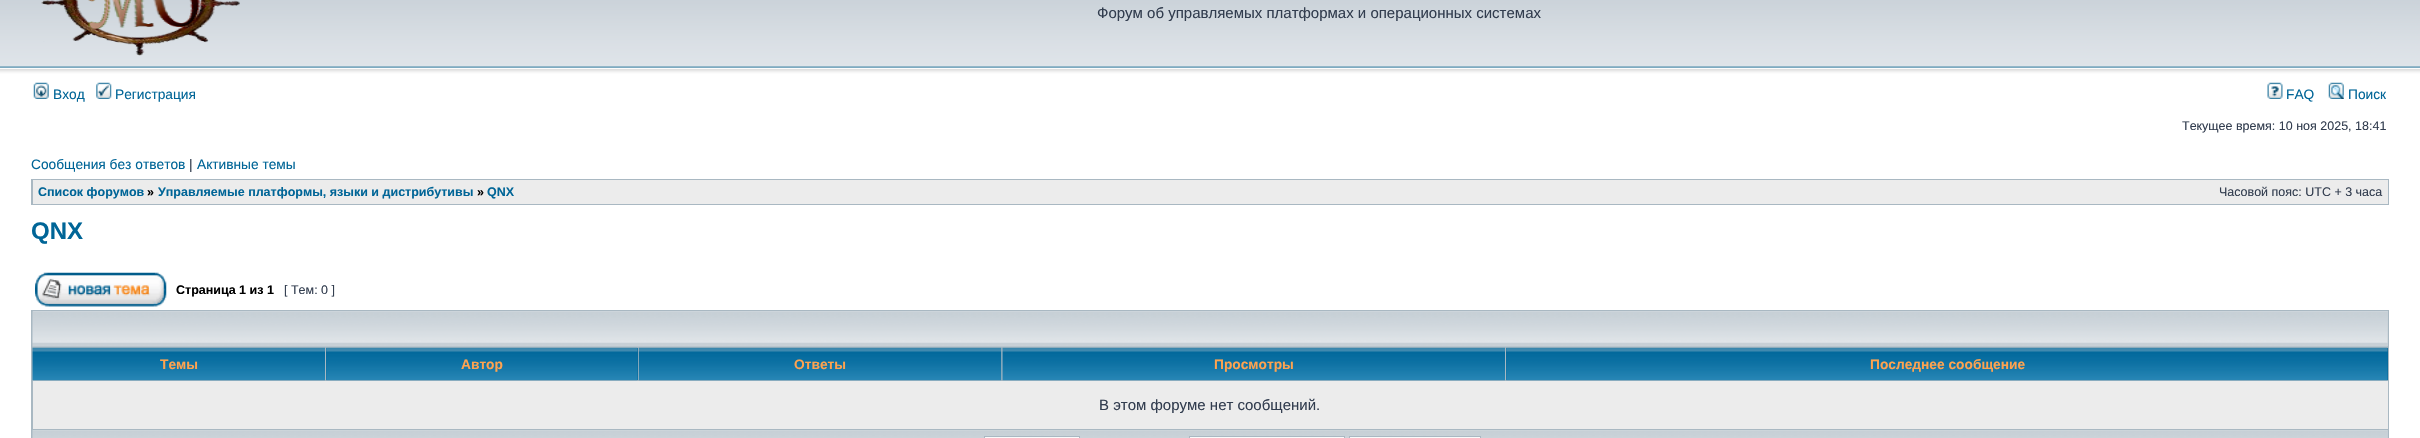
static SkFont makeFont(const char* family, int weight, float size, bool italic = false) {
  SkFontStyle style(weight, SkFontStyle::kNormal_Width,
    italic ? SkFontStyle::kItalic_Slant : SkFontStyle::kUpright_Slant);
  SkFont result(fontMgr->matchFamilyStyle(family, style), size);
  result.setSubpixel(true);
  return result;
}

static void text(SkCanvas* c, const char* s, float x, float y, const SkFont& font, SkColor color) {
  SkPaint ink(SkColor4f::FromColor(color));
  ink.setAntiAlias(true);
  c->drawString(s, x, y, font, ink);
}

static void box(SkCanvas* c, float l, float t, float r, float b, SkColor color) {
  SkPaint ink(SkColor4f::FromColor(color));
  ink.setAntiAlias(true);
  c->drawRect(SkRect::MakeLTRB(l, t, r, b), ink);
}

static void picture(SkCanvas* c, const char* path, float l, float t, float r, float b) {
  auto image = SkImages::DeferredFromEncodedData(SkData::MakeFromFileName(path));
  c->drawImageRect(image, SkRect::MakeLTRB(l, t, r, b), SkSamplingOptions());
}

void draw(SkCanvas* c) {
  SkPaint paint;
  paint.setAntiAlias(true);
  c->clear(0xffffffff);
  picture(c, "img_01.png", 0, 0, 2420, 80);
  picture(c, "img_02.png", 41, 0, 240, 56);
  SkFont face1 = makeFont("Liberation Sans", 400, 15);
  text(c, "Форум об управляемых платформах и операционных системах", 1097, 18, face1, 0xff323d4f);
  picture(c, "img_03.png", 33, 82, 49, 99);
  SkFont face2 = makeFont("Liberation Sans", 400, 13.75f);
  text(c, "Вход", 53, 99, face2, 0xff006597);
  picture(c, "img_04.png", 96, 82, 112, 99);
  text(c, "Регистрация", 115, 99, face2, 0xff006597);
  picture(c, "img_05.png", 2267, 82, 2283, 99);
  text(c, "FAQ", 2286, 99, face2, 0xff006597);
  picture(c, "img_06.png", 2328, 82, 2344, 99);
  text(c, "Поиск", 2348, 99, face2, 0xff006597);
  SkFont face3 = makeFont("Liberation Sans", 400, 12.5f);
  text(c, "Текущее время: 10 ноя 2025, 18:41", 2182, 130, face3, 0xff323d4f);
  text(c, "Сообщения без ответов", 31, 169, face2, 0xff006597);
  text(c, "|", 189, 169, face2, 0xff323d4f);
  text(c, "Активные темы", 197, 169, face2, 0xff006597);
  box(c, 31, 179, 2389, 205, 0xffa9b8c2);
  box(c, 33, 180, 2388, 204, 0xffececec);
  SkFont face4 = makeFont("Liberation Sans", 700, 12.5f);
  text(c, "Список форумов", 38, 196, face4, 0xff006597);
  text(c, "»", 147, 196, face4, 0xff000000);
  text(c, "Управляемые платформы, языки и дистрибутивы", 158, 196, face4, 0xff006597);
  text(c, "»", 477, 196, face4, 0xff000000);
  text(c, "QNX", 487, 196, face4, 0xff006597);
  text(c, "Часовой пояс: UTC + 3 часа", 2219, 196, face3, 0xff323d4f);
  SkFont face5 = makeFont("Liberation Sans", 700, 24);
  text(c, "QNX", 31, 239, face5, 0xff006597);
  picture(c, "img_07.png", 35, 272, 167, 307);
  text(c, "Страница 1 из 1", 176, 294, face4, 0xff000000);
  text(c, "[ Тем: 0 ]", 284, 294, face3, 0xff323d4f);
  box(c, 31, 310, 2389, 438, 0xffa9b8c2);
  box(c, 33, 311, 2388, 346, 0xffc7d0d7);
  picture(c, "img_08.png", 32, 311, 2388, 347);
  picture(c, "img_09.png", 32, 347, 325, 381);
  SkFont face6 = makeFont("Liberation Sans", 700, 13.75f);
  text(c, "Темы", 160, 369, face6, 0xffffa34f);
  box(c, 326, 348, 638, 380, 0xff006699);
  picture(c, "img_10.png", 326, 347, 638, 381);
  text(c, "Автор", 461, 369, face6, 0xffffa34f);
  picture(c, "img_11.png", 638, 347, 1002, 381);
  text(c, "Ответы", 794, 369, face6, 0xffffa34f);
  picture(c, "img_12.png", 1002, 347, 1505, 381);
  text(c, "Просмотры", 1214, 369, face6, 0xffffa34f);
  box(c, 1506, 348, 2388, 380, 0xff006699);
  picture(c, "img_13.png", 1506, 347, 2388, 381);
  text(c, "Последнее сообщение", 1870, 369, face6, 0xffffa34f);
  box(c, 33, 381, 2388, 429, 0xffececec);
  text(c, "В этом форуме нет сообщений.", 1099, 410, face1, 0xff323d4f);
  box(c, 33, 430, 2388, 438, 0xffc7d0d7);
  picture(c, "img_14.png", 32, 430, 2387, 438);
  paint.setColor(0xfffafafa);
  c->drawRect(SkRect::MakeLTRB(984.5f, 436.5f, 1079.5f, 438.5f), paint);
  paint.setStyle(SkPaint::kStroke_Style);
  paint.setStrokeWidth(1);
  paint.setColor(0xffa9b8c2);
  c->drawRect(SkRect::MakeLTRB(984.5f, 436.5f, 1079.5f, 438.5f), paint);
  paint.setStyle(SkPaint::kFill_Style);
  paint.setColor(0xfffafafa);
  c->drawRect(SkRect::MakeLTRB(1189.5f, 436.5f, 1344.5f, 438.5f), paint);
  paint.setStyle(SkPaint::kStroke_Style);
  paint.setColor(0xffa9b8c2);
  c->drawRect(SkRect::MakeLTRB(1189.5f, 436.5f, 1344.5f, 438.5f), paint);
  paint.setStyle(SkPaint::kFill_Style);
  paint.setColor(0xfffafafa);
  c->drawRect(SkRect::MakeLTRB(1349.5f, 436.5f, 1480.5f, 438.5f), paint);
  paint.setStyle(SkPaint::kStroke_Style);
  paint.setColor(0xffa9b8c2);
  c->drawRect(SkRect::MakeLTRB(1349.5f, 436.5f, 1480.5f, 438.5f), paint);
}
